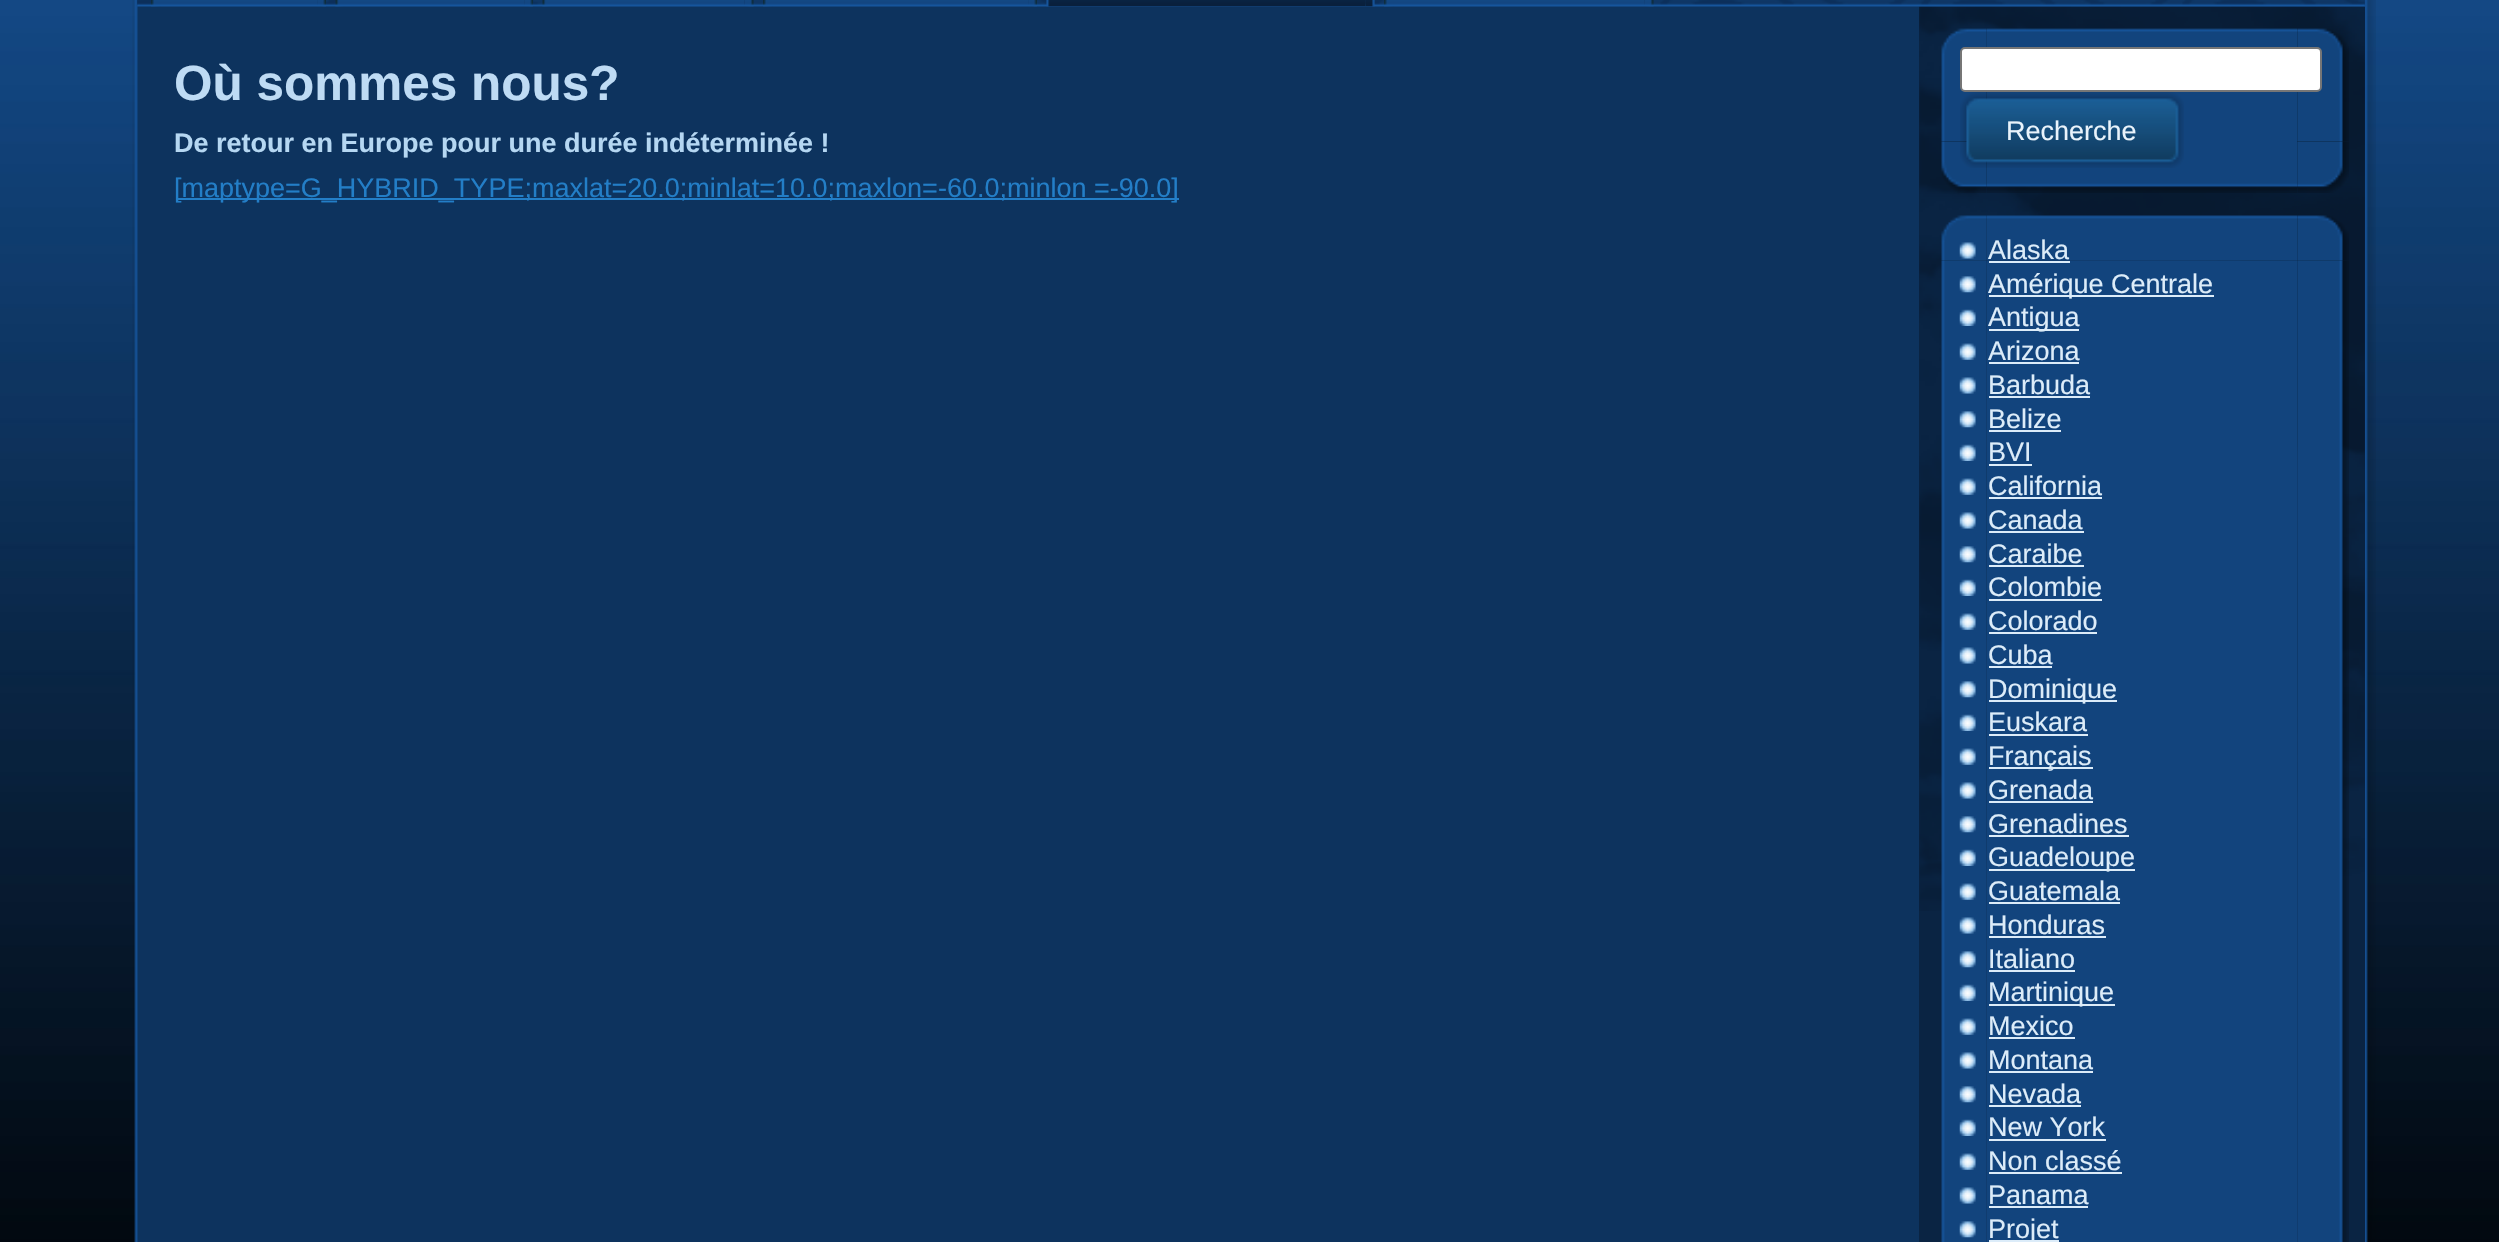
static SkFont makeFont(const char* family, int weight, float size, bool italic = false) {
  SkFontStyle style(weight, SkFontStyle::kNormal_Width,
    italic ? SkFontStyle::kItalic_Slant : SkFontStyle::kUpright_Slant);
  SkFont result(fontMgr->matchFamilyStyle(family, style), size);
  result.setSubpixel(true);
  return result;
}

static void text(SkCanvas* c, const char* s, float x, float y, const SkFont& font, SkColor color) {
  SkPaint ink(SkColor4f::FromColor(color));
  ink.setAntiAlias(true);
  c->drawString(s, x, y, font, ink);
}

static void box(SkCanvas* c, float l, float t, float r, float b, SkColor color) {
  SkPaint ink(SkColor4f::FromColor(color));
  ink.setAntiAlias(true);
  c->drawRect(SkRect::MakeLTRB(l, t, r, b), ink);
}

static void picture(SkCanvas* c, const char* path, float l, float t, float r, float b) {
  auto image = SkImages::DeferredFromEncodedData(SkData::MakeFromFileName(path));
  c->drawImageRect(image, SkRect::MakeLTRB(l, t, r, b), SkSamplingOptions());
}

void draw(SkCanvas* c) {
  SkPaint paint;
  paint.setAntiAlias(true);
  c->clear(0xffffffff);
  picture(c, "img_01.png", 0, 0, 2499, 1242);
  picture(c, "img_02.png", 132, 0, 209, 1242);
  box(c, 209, 6, 2293, 1242, 0xff0d335e);
  picture(c, "img_03.png", 2293, 0, 2376, 1242);
  box(c, 1919, 7, 2365, 1242, 0xff0a2443);
  picture(c, "img_17.png", 1919, 6, 2365, 911);
  picture(c, "img_04.png", 137, 0, 2365, 7);
  picture(c, "img_05.png", 151, 0, 318, 7);
  picture(c, "img_06.png", 317, 0, 326, 7);
  picture(c, "img_07.png", 335, 0, 525, 7);
  picture(c, "img_08.png", 524, 0, 533, 7);
  picture(c, "img_09.png", 542, 0, 745, 7);
  picture(c, "img_10.png", 745, 0, 754, 7);
  picture(c, "img_11.png", 763, 0, 1029, 7);
  picture(c, "img_12.png", 1028, 0, 1037, 7);
  picture(c, "img_13.png", 1046, 0, 1366, 7);
  picture(c, "img_14.png", 1365, 0, 1375, 7);
  picture(c, "img_15.png", 1384, 0, 1645, 7);
  picture(c, "img_16.png", 1645, 0, 1654, 7);
  SkFont face1 = makeFont("Liberation Sans", 700, 49.5f);
  text(c, "Où sommes nous?", 174, 100, face1, 0xffbedbf4);
  SkFont face2 = makeFont("Liberation Sans", 700, 27);
  text(c, "De retour en Europe pour une durée indéterminée !", 174, 152, face2, 0xffb5d7f2);
  box(c, 176, 198, 1179, 200, 0xff237ec7);
  SkFont face3 = makeFont("Liberation Sans", 400, 27);
  text(c, "[maptype=G_HYBRID_TYPE;maxlat=20.0;minlat=10.0;maxlon=-60.0;minlon =-90.0]", 174, 197, face3, 0xff237ec7);
  picture(c, "img_18.png", 1941, 28, 1987, 74);
  picture(c, "img_19.png", 1987, 28, 2297, 47);
  picture(c, "img_20.png", 2297, 28, 2349, 74);
  picture(c, "img_25.png", 1941, 141, 1987, 193);
  picture(c, "img_21.png", 1941, 74, 1987, 142);
  box(c, 1987, 92, 2297, 142, 0xff12447d);
  picture(c, "img_27.png", 2297, 141, 2349, 193);
  picture(c, "img_22.png", 2297, 74, 2349, 142);
  paint.setColor(0xffffffff);
  c->drawRoundRect(SkRect::MakeLTRB(1961, 48, 2321, 91), 4, 4, paint);
  paint.setStyle(SkPaint::kStroke_Style);
  paint.setStrokeWidth(2);
  paint.setColor(0xff767676);
  c->drawRoundRect(SkRect::MakeLTRB(1961, 48, 2321, 91), 4, 4, paint);
  picture(c, "img_26.png", 1987, 142, 2297, 193);
  picture(c, "img_23.png", 1960, 92, 2160, 168);
  picture(c, "img_24.png", 2160, 92, 2184, 168);
  text(c, "Recherche", 2006, 140, face3, 0xffe9f3fb);
  picture(c, "img_28.png", 1941, 215, 1987, 261);
  picture(c, "img_29.png", 1987, 215, 2297, 261);
  picture(c, "img_30.png", 2297, 215, 2349, 261);
  picture(c, "img_31.png", 1941, 261, 1987, 1242);
  picture(c, "img_32.png", 1959, 242, 1976, 259);
  text(c, "Alaska", 1988, 259, face3, 0xffdcecf9);
  box(c, 1987, 261, 2297, 1242, 0xff12447d);
  box(c, 1989, 261, 2070, 263, 0xffdcecf9);
  picture(c, "img_33.png", 1959, 276, 1976, 293);
  box(c, 1989, 295, 2214, 297, 0xffdcecf9);
  text(c, "Amérique Centrale", 1988, 293, face3, 0xffdcecf9);
  picture(c, "img_34.png", 1959, 309, 1976, 326);
  box(c, 1989, 329, 2079, 331, 0xffdcecf9);
  text(c, "Antigua", 1988, 326, face3, 0xffdcecf9);
  picture(c, "img_35.png", 1959, 343, 1976, 360);
  text(c, "Arizona", 1988, 360, face3, 0xffdcecf9);
  box(c, 1989, 362, 2079, 364, 0xffdcecf9);
  picture(c, "img_32.png", 1959, 377, 1976, 394);
  text(c, "Barbuda", 1988, 394, face3, 0xffdcecf9);
  box(c, 1989, 396, 2090, 398, 0xffdcecf9);
  picture(c, "img_33.png", 1959, 411, 1976, 428);
  text(c, "Belize", 1988, 428, face3, 0xffdcecf9);
  box(c, 1989, 430, 2061, 432, 0xffdcecf9);
  picture(c, "img_34.png", 1959, 444, 1976, 461);
  text(c, "BVI", 1988, 461, face3, 0xffdcecf9);
  box(c, 1989, 464, 2032, 466, 0xffdcecf9);
  picture(c, "img_35.png", 1959, 478, 1976, 495);
  text(c, "California", 1988, 495, face3, 0xffdcecf9);
  box(c, 1989, 497, 2102, 499, 0xffdcecf9);
  picture(c, "img_32.png", 1959, 512, 1976, 529);
  text(c, "Canada", 1988, 529, face3, 0xffdcecf9);
  box(c, 1989, 531, 2084, 533, 0xffdcecf9);
  picture(c, "img_33.png", 1959, 546, 1976, 563);
  text(c, "Caraibe", 1988, 563, face3, 0xffdcecf9);
  box(c, 1989, 565, 2084, 567, 0xffdcecf9);
  picture(c, "img_34.png", 1959, 579, 1976, 596);
  text(c, "Colombie", 1988, 596, face3, 0xffdcecf9);
  box(c, 1989, 599, 2102, 601, 0xffdcecf9);
  picture(c, "img_35.png", 1959, 613, 1976, 630);
  text(c, "Colorado", 1988, 630, face3, 0xffdcecf9);
  box(c, 1989, 632, 2097, 634, 0xffdcecf9);
  picture(c, "img_32.png", 1959, 647, 1976, 664);
  text(c, "Cuba", 1988, 664, face3, 0xffdcecf9);
  box(c, 1989, 666, 2052, 668, 0xffdcecf9);
  picture(c, "img_33.png", 1959, 681, 1976, 698);
  box(c, 1989, 700, 2117, 702, 0xffdcecf9);
  text(c, "Dominique", 1988, 698, face3, 0xffdcecf9);
  picture(c, "img_34.png", 1959, 714, 1976, 731);
  text(c, "Euskara", 1988, 731, face3, 0xffdcecf9);
  box(c, 1989, 734, 2088, 736, 0xffdcecf9);
  picture(c, "img_35.png", 1959, 748, 1976, 765);
  box(c, 1989, 767, 2093, 769, 0xffdcecf9);
  text(c, "Français", 1988, 765, face3, 0xffdcecf9);
  picture(c, "img_32.png", 1959, 782, 1976, 799);
  text(c, "Grenada", 1988, 799, face3, 0xffdcecf9);
  box(c, 1989, 801, 2093, 803, 0xffdcecf9);
  picture(c, "img_33.png", 1959, 816, 1976, 833);
  text(c, "Grenadines", 1988, 833, face3, 0xffdcecf9);
  box(c, 1989, 835, 2129, 837, 0xffdcecf9);
  picture(c, "img_34.png", 1959, 849, 1976, 866);
  box(c, 1989, 869, 2135, 871, 0xffdcecf9);
  text(c, "Guadeloupe", 1988, 866, face3, 0xffdcecf9);
  picture(c, "img_35.png", 1959, 883, 1976, 900);
  text(c, "Guatemala", 1988, 900, face3, 0xffdcecf9);
  box(c, 1989, 902, 2120, 904, 0xffdcecf9);
  picture(c, "img_32.png", 1959, 917, 1976, 934);
  text(c, "Honduras", 1988, 934, face3, 0xffdcecf9);
  box(c, 1989, 936, 2106, 938, 0xffdcecf9);
  picture(c, "img_33.png", 1959, 951, 1976, 968);
  text(c, "Italiano", 1988, 968, face3, 0xffdcecf9);
  box(c, 1989, 970, 2075, 972, 0xffdcecf9);
  picture(c, "img_34.png", 1959, 984, 1976, 1001);
  box(c, 1989, 1004, 2115, 1006, 0xffdcecf9);
  text(c, "Martinique", 1988, 1001, face3, 0xffdcecf9);
  picture(c, "img_35.png", 1959, 1018, 1976, 1035);
  text(c, "Mexico", 1988, 1035, face3, 0xffdcecf9);
  box(c, 1989, 1037, 2075, 1039, 0xffdcecf9);
  picture(c, "img_32.png", 1959, 1052, 1976, 1069);
  text(c, "Montana", 1988, 1069, face3, 0xffdcecf9);
  box(c, 1989, 1071, 2093, 1073, 0xffdcecf9);
  picture(c, "img_33.png", 1959, 1086, 1976, 1103);
  text(c, "Nevada", 1988, 1103, face3, 0xffdcecf9);
  box(c, 1989, 1105, 2081, 1107, 0xffdcecf9);
  picture(c, "img_34.png", 1959, 1119, 1976, 1136);
  text(c, "New York", 1988, 1136, face3, 0xffdcecf9);
  box(c, 1989, 1139, 2106, 1141, 0xffdcecf9);
  picture(c, "img_35.png", 1959, 1153, 1976, 1170);
  text(c, "Non classé", 1988, 1170, face3, 0xffdcecf9);
  box(c, 1989, 1172, 2122, 1174, 0xffdcecf9);
  picture(c, "img_32.png", 1959, 1187, 1976, 1204);
  text(c, "Panama", 1988, 1204, face3, 0xffdcecf9);
  box(c, 1989, 1206, 2088, 1208, 0xffdcecf9);
  picture(c, "img_33.png", 1959, 1221, 1976, 1238);
  box(c, 1989, 1240, 2059, 1242, 0xffdcecf9);
  text(c, "Projet", 1988, 1238, face3, 0xffdcecf9);
  picture(c, "img_36.png", 2297, 261, 2349, 1242);
}
